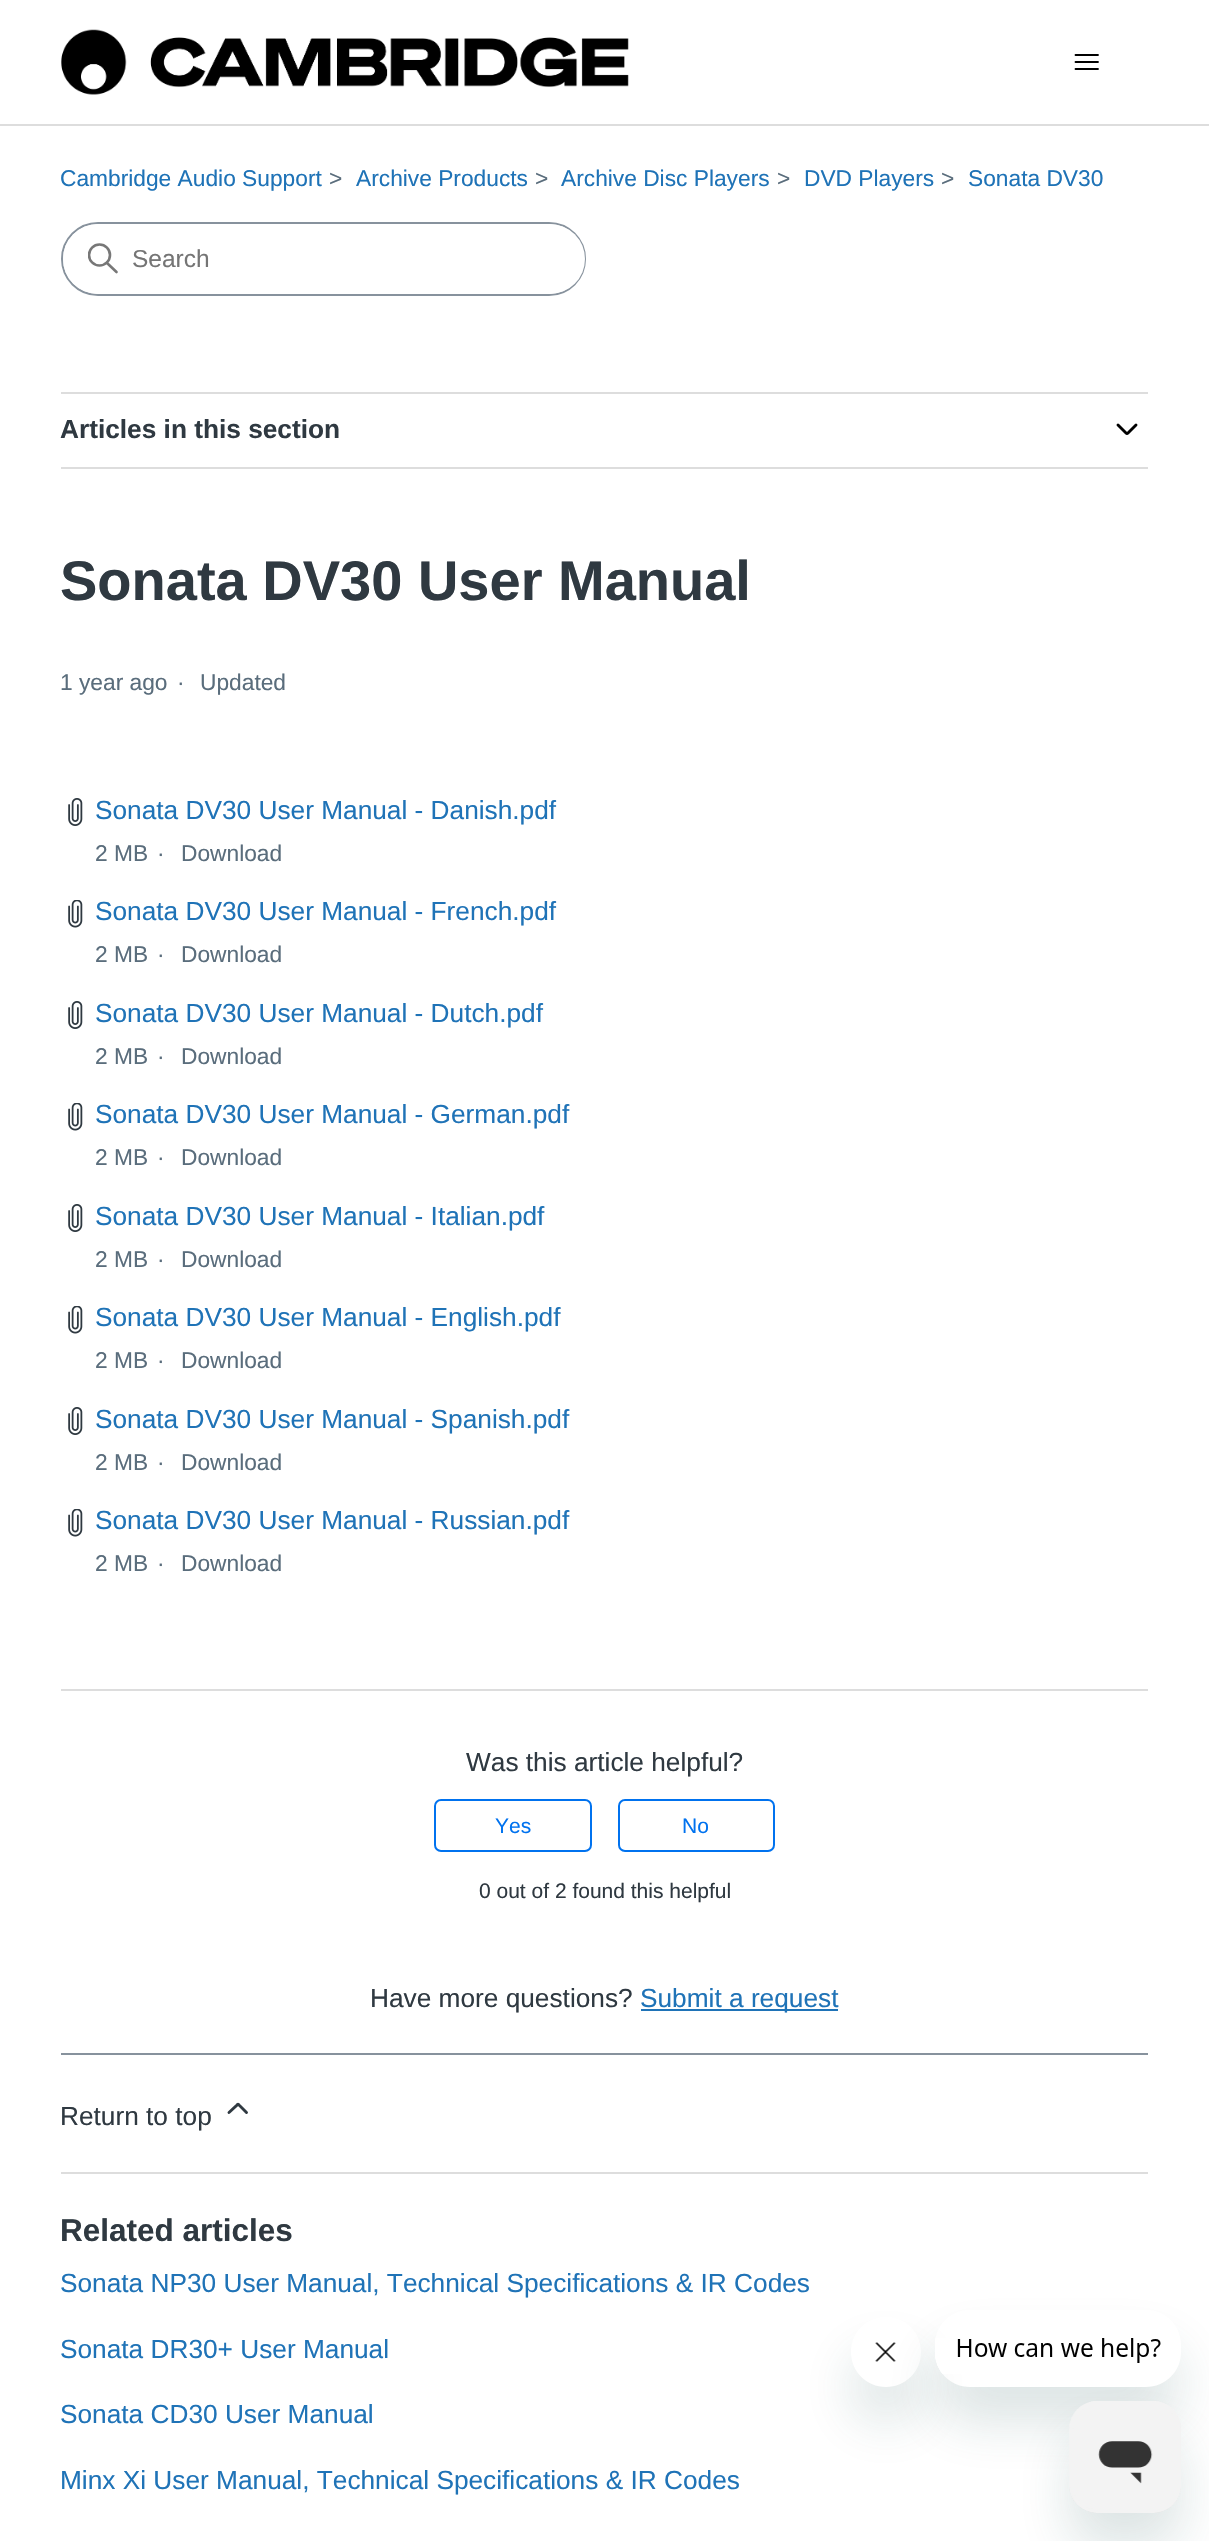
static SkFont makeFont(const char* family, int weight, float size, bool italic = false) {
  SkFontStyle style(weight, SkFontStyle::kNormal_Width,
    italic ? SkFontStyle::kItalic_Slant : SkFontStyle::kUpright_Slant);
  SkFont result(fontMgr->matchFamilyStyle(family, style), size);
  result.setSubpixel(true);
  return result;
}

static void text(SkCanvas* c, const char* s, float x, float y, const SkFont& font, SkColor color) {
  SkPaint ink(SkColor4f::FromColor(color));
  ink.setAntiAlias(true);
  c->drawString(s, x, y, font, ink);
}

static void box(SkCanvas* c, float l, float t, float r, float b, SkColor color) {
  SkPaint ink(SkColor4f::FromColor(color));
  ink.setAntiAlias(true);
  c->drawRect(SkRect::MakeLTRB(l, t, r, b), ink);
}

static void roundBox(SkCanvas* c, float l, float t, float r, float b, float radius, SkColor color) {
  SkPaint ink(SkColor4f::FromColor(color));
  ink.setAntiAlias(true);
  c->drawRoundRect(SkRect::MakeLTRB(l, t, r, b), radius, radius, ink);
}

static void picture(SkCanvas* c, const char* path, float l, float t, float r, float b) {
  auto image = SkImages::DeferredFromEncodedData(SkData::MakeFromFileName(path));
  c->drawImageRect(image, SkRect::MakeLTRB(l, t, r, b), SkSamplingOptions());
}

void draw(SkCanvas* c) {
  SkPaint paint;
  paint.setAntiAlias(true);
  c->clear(0xffffffff);
  picture(c, "img_01.png", 61, 29, 629, 95);
  paint.setStyle(SkPaint::kStroke_Style);
  paint.setStrokeWidth(1.8f);
  paint.setStrokeCap(SkPaint::kRound_Cap);
  paint.setColor(0xff000000);
  c->drawPath(SkPathBuilder().moveTo(1075.5f, 55).lineTo(1098, 55).moveTo(1075.5f, 62).lineTo(1098, 62).moveTo(1075.5f, 69).lineTo(1098, 69).detach(), paint);
  box(c, 0, 124, 1209, 126, 0xffdddddd);
  SkFont face1 = makeFont("Liberation Sans", 400, 22.75f);
  text(c, "Cambridge Audio Support", 60, 186, face1, 0xff1f73b7);
  text(c, ">", 329, 186, face1, 0xff5a6d7c);
  text(c, "Archive Products", 356, 186, face1, 0xff1f73b7);
  text(c, ">", 535, 186, face1, 0xff5a6d7c);
  text(c, "Archive Disc Players", 561, 186, face1, 0xff1f73b7);
  text(c, ">", 777, 186, face1, 0xff5a6d7c);
  text(c, "DVD Players", 804, 186, face1, 0xff1f73b7);
  text(c, ">", 941, 186, face1, 0xff5a6d7c);
  text(c, "Sonata DV30", 968, 186, face1, 0xff1f73b7);
  paint.setStrokeWidth(2);
  paint.setStrokeCap(SkPaint::kButt_Cap);
  paint.setColor(0xff87929d);
  c->drawRoundRect(SkRect::MakeLTRB(62, 223, 585, 295), 36, 36, paint);
  roundBox(c, 63, 224, 585, 294, 35, 0xffffffff);
  c->save();
  c->clipRect(SkRect::MakeLTRB(88, 243, 119, 275));
  paint.setStrokeWidth(2.6f);
  paint.setColor(0xff777777);
  c->drawCircle(99.5f, 255, 10.5f, paint);
  c->restore();
  paint.setStrokeCap(SkPaint::kRound_Cap);
  c->drawPath(SkPathBuilder().moveTo(116.5f, 272).lineTo(107, 263).detach(), paint);
  SkFont face2 = makeFont("Liberation Sans", 400, 24.5f);
  text(c, "Search", 132, 267, face2, 0xff757575);
  box(c, 61, 392, 1148, 394, 0xffdddddd);
  box(c, 61, 467, 1148, 469, 0xffdddddd);
  SkFont face3 = makeFont("Liberation Sans", 700, 26.25f);
  text(c, "Articles in this section", 60, 438, face3, 0xff2f3941);
  paint.setStrokeWidth(2.9f);
  paint.setColor(0xff000000);
  c->drawPath(SkPathBuilder().moveTo(1118, 425).lineTo(1126, 433).cubicTo(1126.5f, 433.5f, 1127.5f, 433.5f, 1128, 433).lineTo(1136, 425).detach(), paint);
  SkFont face4 = makeFont("Liberation Sans", 700, 56);
  text(c, "Sonata DV30 User Manual", 60, 600, face4, 0xff2f3941);
  text(c, "1 year ago", 60, 690, face1, 0xff5a6d7c);
  text(c, "·", 177, 690, face1, 0xff5a6d7c);
  text(c, "Updated", 200, 690, face1, 0xff5a6d7c);
  picture(c, "img_02.png", 68, 798, 83, 826);
  SkFont face5 = makeFont("Liberation Sans", 400, 26.25f);
  text(c, "Sonata DV30 User Manual - Danish.pdf", 95, 819, face5, 0xff1f73b7);
  text(c, "2 MB", 95, 861, face1, 0xff5a6d7c);
  text(c, "·", 157, 861, face1, 0xff5a6d7c);
  text(c, "Download", 181, 861, face1, 0xff5a6d7c);
  picture(c, "img_03.png", 68, 900, 83, 928);
  text(c, "Sonata DV30 User Manual - French.pdf", 95, 920, face5, 0xff1f73b7);
  text(c, "2 MB", 95, 962, face1, 0xff5a6d7c);
  text(c, "·", 157, 962, face1, 0xff5a6d7c);
  text(c, "Download", 181, 962, face1, 0xff5a6d7c);
  picture(c, "img_02.png", 68, 1001, 83, 1029);
  text(c, "Sonata DV30 User Manual - Dutch.pdf", 95, 1022, face5, 0xff1f73b7);
  text(c, "2 MB", 95, 1064, face1, 0xff5a6d7c);
  text(c, "·", 157, 1064, face1, 0xff5a6d7c);
  text(c, "Download", 181, 1064, face1, 0xff5a6d7c);
  picture(c, "img_03.png", 68, 1103, 83, 1131);
  text(c, "Sonata DV30 User Manual - German.pdf", 95, 1123, face5, 0xff1f73b7);
  text(c, "2 MB", 95, 1165, face1, 0xff5a6d7c);
  text(c, "·", 157, 1165, face1, 0xff5a6d7c);
  text(c, "Download", 181, 1165, face1, 0xff5a6d7c);
  picture(c, "img_02.png", 68, 1204, 83, 1232);
  text(c, "Sonata DV30 User Manual - Italian.pdf", 95, 1225, face5, 0xff1f73b7);
  text(c, "2 MB", 95, 1267, face1, 0xff5a6d7c);
  text(c, "·", 157, 1267, face1, 0xff5a6d7c);
  text(c, "Download", 181, 1267, face1, 0xff5a6d7c);
  picture(c, "img_03.png", 68, 1306, 83, 1334);
  text(c, "Sonata DV30 User Manual - English.pdf", 95, 1326, face5, 0xff1f73b7);
  text(c, "2 MB", 95, 1368, face1, 0xff5a6d7c);
  text(c, "·", 157, 1368, face1, 0xff5a6d7c);
  text(c, "Download", 181, 1368, face1, 0xff5a6d7c);
  picture(c, "img_02.png", 68, 1407, 83, 1435);
  text(c, "Sonata DV30 User Manual - Spanish.pdf", 95, 1428, face5, 0xff1f73b7);
  text(c, "2 MB", 95, 1470, face1, 0xff5a6d7c);
  text(c, "·", 157, 1470, face1, 0xff5a6d7c);
  text(c, "Download", 181, 1470, face1, 0xff5a6d7c);
  picture(c, "img_03.png", 68, 1509, 83, 1537);
  text(c, "Sonata DV30 User Manual - Russian.pdf", 95, 1529, face5, 0xff1f73b7);
  text(c, "2 MB", 95, 1571, face1, 0xff5a6d7c);
  text(c, "·", 157, 1571, face1, 0xff5a6d7c);
  text(c, "Download", 181, 1571, face1, 0xff5a6d7c);
  box(c, 61, 1689, 1148, 1691, 0xffdddddd);
  text(c, "Was this article helpful?", 466, 1771, face5, 0xff2f3941);
  paint.setStrokeWidth(2);
  paint.setStrokeCap(SkPaint::kButt_Cap);
  paint.setColor(0xff0072ef);
  c->drawRoundRect(SkRect::MakeLTRB(435, 1800, 591, 1851), 6, 6, paint);
  SkFont face6 = makeFont("Liberation Sans", 400, 21);
  text(c, "Yes", 495, 1833, face6, 0xff0072ef);
  c->drawRoundRect(SkRect::MakeLTRB(619, 1800, 774, 1851), 6, 6, paint);
  text(c, "No", 682, 1833, face6, 0xff0072ef);
  text(c, "0 out of 2 found this helpful", 479, 1898, face6, 0xff2f3941);
  text(c, "Have more questions?", 370, 2007, face5, 0xff2f3941);
  box(c, 641, 2009, 838, 2011, 0xff1f73b7);
  text(c, "Submit a request", 640, 2007, face5, 0xff1f73b7);
  box(c, 61, 2053, 1148, 2055, 0xff87929d);
  text(c, "Return to top", 60, 2125, face5, 0xff2f3941);
  paint.setStrokeWidth(2.9f);
  paint.setStrokeCap(SkPaint::kRound_Cap);
  paint.setColor(0xff2f3941);
  c->drawPath(SkPathBuilder().moveTo(246.5f, 2112.5f).lineTo(239, 2105).cubicTo(238.5f, 2104, 237.5f, 2104, 237, 2105).lineTo(229, 2112.5f).detach(), paint);
  box(c, 61, 2172, 1148, 2174, 0xffdddddd);
  SkFont face7 = makeFont("Liberation Sans", 700, 31.5f);
  text(c, "Related articles", 60, 2241, face7, 0xff2f3941);
  text(c, "Sonata NP30 User Manual, Technical Specifications & IR Codes", 60, 2292, face5, 0xff1f73b7);
  text(c, "Sonata DR30+ User Manual", 60, 2358, face5, 0xff1f73b7);
  text(c, "Sonata CD30 User Manual", 60, 2423, face5, 0xff1f73b7);
  text(c, "Minx Xi User Manual, Technical Specifications & IR Codes", 60, 2489, face5, 0xff1f73b7);
  c->save();
  c->clipPath(SkPathBuilder(SkPathFillType::kEvenOdd).moveTo(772, 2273).lineTo(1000, 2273).lineTo(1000, 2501).lineTo(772, 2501).close().moveTo(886, 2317).cubicTo(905.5f, 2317, 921, 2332.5f, 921, 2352).cubicTo(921, 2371.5f, 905.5f, 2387, 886, 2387).cubicTo(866.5f, 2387, 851, 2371.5f, 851, 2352).cubicTo(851, 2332.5f, 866.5f, 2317, 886, 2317).close().detach(), true);
  paint.setStyle(SkPaint::kFill_Style);
  paint.setColor(0x2617494d);
  paint.setMaskFilter(SkMaskFilter::MakeBlur(kNormal_SkBlurStyle, 26));
  c->drawRoundRect(SkRect::MakeLTRB(851, 2352, 921, 2422), 35, 35, paint);
  paint.setMaskFilter(nullptr);
  c->restore();
  picture(c, "img_05.png", 875, 2342, 896, 2362);
  c->save();
  c->clipPath(SkPathBuilder(SkPathFillType::kEvenOdd).moveTo(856, 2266).lineTo(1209, 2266).lineTo(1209, 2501).lineTo(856, 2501).close().moveTo(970, 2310).lineTo(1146, 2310).cubicTo(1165.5f, 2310, 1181, 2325.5f, 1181, 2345).lineTo(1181, 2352).cubicTo(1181, 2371.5f, 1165.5f, 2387, 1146, 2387).lineTo(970, 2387).cubicTo(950.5f, 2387, 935, 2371.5f, 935, 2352).lineTo(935, 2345).cubicTo(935, 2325.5f, 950.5f, 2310, 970, 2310).close().detach(), true);
  paint.setMaskFilter(SkMaskFilter::MakeBlur(kNormal_SkBlurStyle, 26));
  c->drawRoundRect(SkRect::MakeLTRB(935, 2345, 1181, 2422), 35, 35, paint);
  paint.setMaskFilter(nullptr);
  c->restore();
  picture(c, "img_04.png", 935, 2338, 1161, 2374);
  paint.setMaskFilter(SkMaskFilter::MakeBlur(kNormal_SkBlurStyle, 26));
  c->drawRoundRect(SkRect::MakeLTRB(1069, 2436, 1181, 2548), 28, 28, paint);
  paint.setMaskFilter(nullptr);
  picture(c, "img_06.png", 1069, 2401, 1181, 2513);
}
